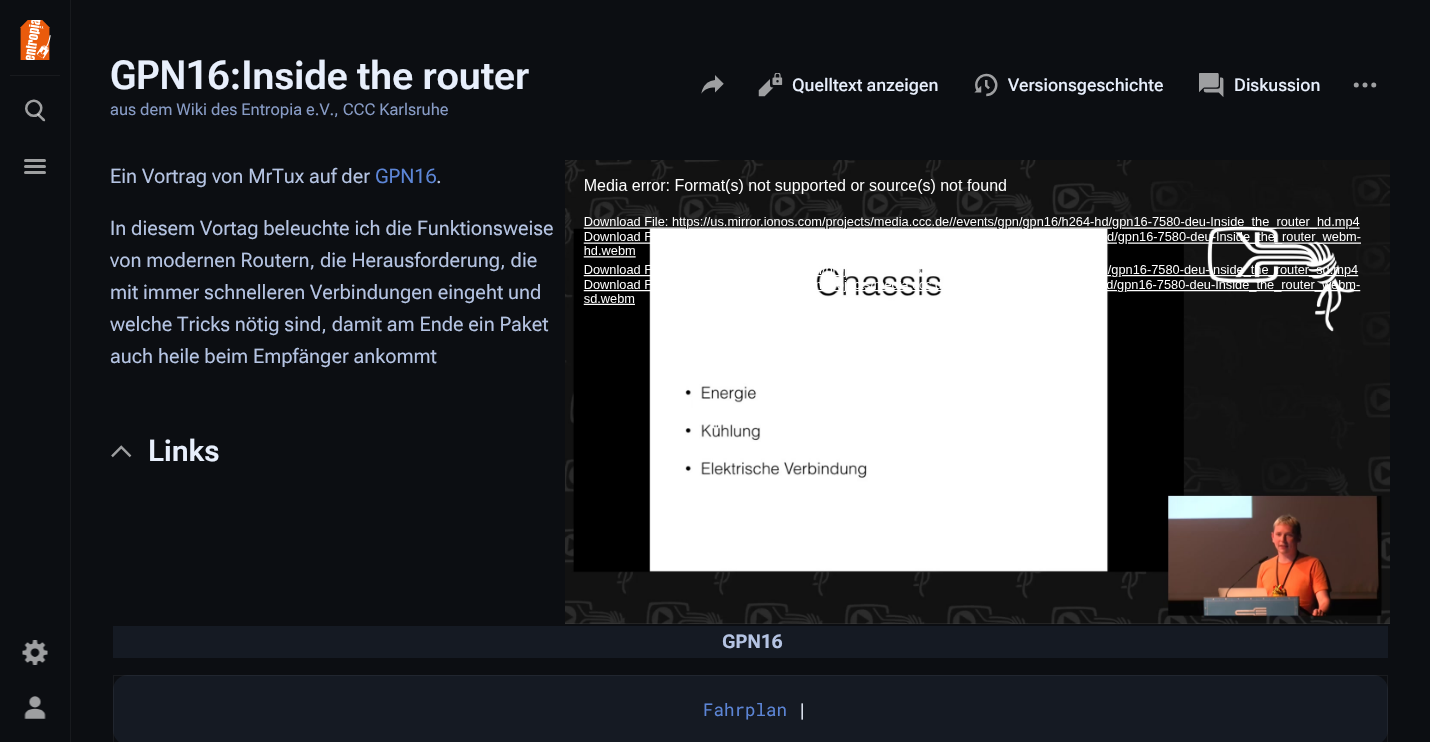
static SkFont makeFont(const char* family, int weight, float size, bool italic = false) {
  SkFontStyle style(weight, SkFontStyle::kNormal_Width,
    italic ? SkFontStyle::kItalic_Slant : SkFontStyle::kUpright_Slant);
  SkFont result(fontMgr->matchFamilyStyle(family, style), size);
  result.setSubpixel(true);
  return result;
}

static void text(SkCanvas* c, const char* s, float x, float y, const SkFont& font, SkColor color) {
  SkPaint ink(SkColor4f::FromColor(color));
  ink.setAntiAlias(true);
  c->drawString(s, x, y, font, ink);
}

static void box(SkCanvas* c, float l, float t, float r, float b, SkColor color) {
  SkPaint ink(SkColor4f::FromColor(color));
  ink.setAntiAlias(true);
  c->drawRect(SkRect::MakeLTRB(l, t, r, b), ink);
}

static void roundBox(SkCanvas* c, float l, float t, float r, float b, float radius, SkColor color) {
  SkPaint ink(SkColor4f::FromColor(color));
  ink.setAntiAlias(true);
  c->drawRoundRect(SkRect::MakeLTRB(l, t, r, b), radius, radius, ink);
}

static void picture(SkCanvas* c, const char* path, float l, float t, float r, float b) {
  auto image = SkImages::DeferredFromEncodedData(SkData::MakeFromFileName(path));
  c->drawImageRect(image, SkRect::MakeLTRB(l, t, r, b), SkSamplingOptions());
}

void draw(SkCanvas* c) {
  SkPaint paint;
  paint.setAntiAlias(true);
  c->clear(0xff0c0e12);
  box(c, 70, 0, 71, 742, 0xff181a1e);
  box(c, 10, 75, 60, 76, 0xff181a1e);
  picture(c, "img_01.png", 20, 20, 51, 60);
  paint.setColor(0xff9e9fa0);
  c->drawPath(SkPathBuilder().moveTo(37.5f, 114).cubicTo(39, 112.5f, 41.5f, 116, 42, 116.5f).cubicTo(43, 117.5f, 46, 119.5f, 45, 121).cubicTo(43.5f, 122.5f, 41, 119, 40.5f, 118.5f).cubicTo(39.5f, 117.5f, 36.5f, 115.5f, 37.5f, 114).close().detach(), paint);
  paint.setStyle(SkPaint::kStroke_Style);
  paint.setStrokeWidth(2.5f);
  paint.setColor(0x99ffffff);
  c->drawPath(SkPathBuilder().moveTo(28.5f, 103).cubicTo(35.5f, 96, 46, 106.5f, 39, 113.5f).cubicTo(32, 120.5f, 21.5f, 110, 28.5f, 103).close().detach(), paint);
  roundBox(c, 24, 159, 46, 162, 1.5f, 0xff9e9fa0);
  roundBox(c, 24, 165, 46, 168, 1.5f, 0xff9e9fa0);
  roundBox(c, 24, 171, 46, 174, 1.5f, 0xff9e9fa0);
  picture(c, "img_02.png", 22, 640, 48, 665);
  picture(c, "img_03.png", 24, 696, 46, 719);
  SkFont face1 = makeFont("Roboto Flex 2", 600, 40);
  text(c, "GPN16:Inside the router", 110, 89, face1, 0xffe8effc);
  SkFont face2 = makeFont("Roboto Flex 2", 400, 16.25f);
  text(c, "aus dem Wiki des Entropia e.V., CCC Karlsruhe", 110, 115, face2, 0xff879bc5);
  picture(c, "img_04.png", 701, 75, 724, 94);
  picture(c, "img_05.png", 758, 73, 783, 97);
  SkFont face3 = makeFont("Roboto Flex", 500, 17.5f);
  text(c, "Quelltext anzeigen", 792, 91, face3, 0xffe8effc);
  picture(c, "img_06.png", 974, 73, 998, 97);
  text(c, "Versionsgeschichte", 1008, 91, face3, 0xffe8effc);
  picture(c, "img_07.png", 1199, 73, 1224, 97);
  text(c, "Diskussion", 1234, 91, face3, 0xffe8effc);
  picture(c, "img_08.png", 1353, 82, 1377, 88);
  SkFont face4 = makeFont("Roboto Flex", 400, 20);
  text(c, "Ein Vortrag von MrTux auf der", 110, 183, face4, 0xffb5c4e3);
  text(c, "GPN16", 375, 183, face4, 0xff5c85d6);
  text(c, ".", 436, 183, face4, 0xffb5c4e3);
  picture(c, "img_09.png", 565, 160, 1390, 624);
  text(c, "In diesem Vortag beleuchte ich die Funktionsweise", 110, 235, face4, 0xffb5c4e3);
  text(c, "von modernen Routern, die Herausforderung, die", 110, 267, face4, 0xffb5c4e3);
  text(c, "mit immer schnelleren Verbindungen eingeht und", 110, 299, face4, 0xffb5c4e3);
  text(c, "welche Tricks nötig sind, damit am Ende ein Paket", 110, 331, face4, 0xffb5c4e3);
  text(c, "auch heile beim Empfänger ankommt", 110, 363, face4, 0xffb5c4e3);
  picture(c, "img_10.png", 111, 445, 132, 458);
  SkFont face5 = makeFont("Roboto Flex", 600, 30);
  text(c, "Links", 148, 461, face5, 0xffe8effc);
  box(c, 113, 626, 1388, 658, 0xff151a23);
  SkFont face6 = makeFont("Roboto Flex", 700, 19);
  text(c, "GPN16", 722, 648, face6, 0xffb5c4e3);
  roundBox(c, 113, 675, 1388, 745, 15, 0xff151a23);
  paint.setStrokeWidth(1);
  paint.setColor(0x0dffffff);
  c->drawRect(SkRect::MakeLTRB(113.5f, 675.5f, 1387.5f, 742.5f), paint);
  SkFont face7 = makeFont("Roboto Mono", 400, 17.5f);
  text(c, "Fahrplan", 703, 716, face7, 0xff5c85d6);
  text(c, "|", 797, 716, face7, 0xffe8effc);
}
